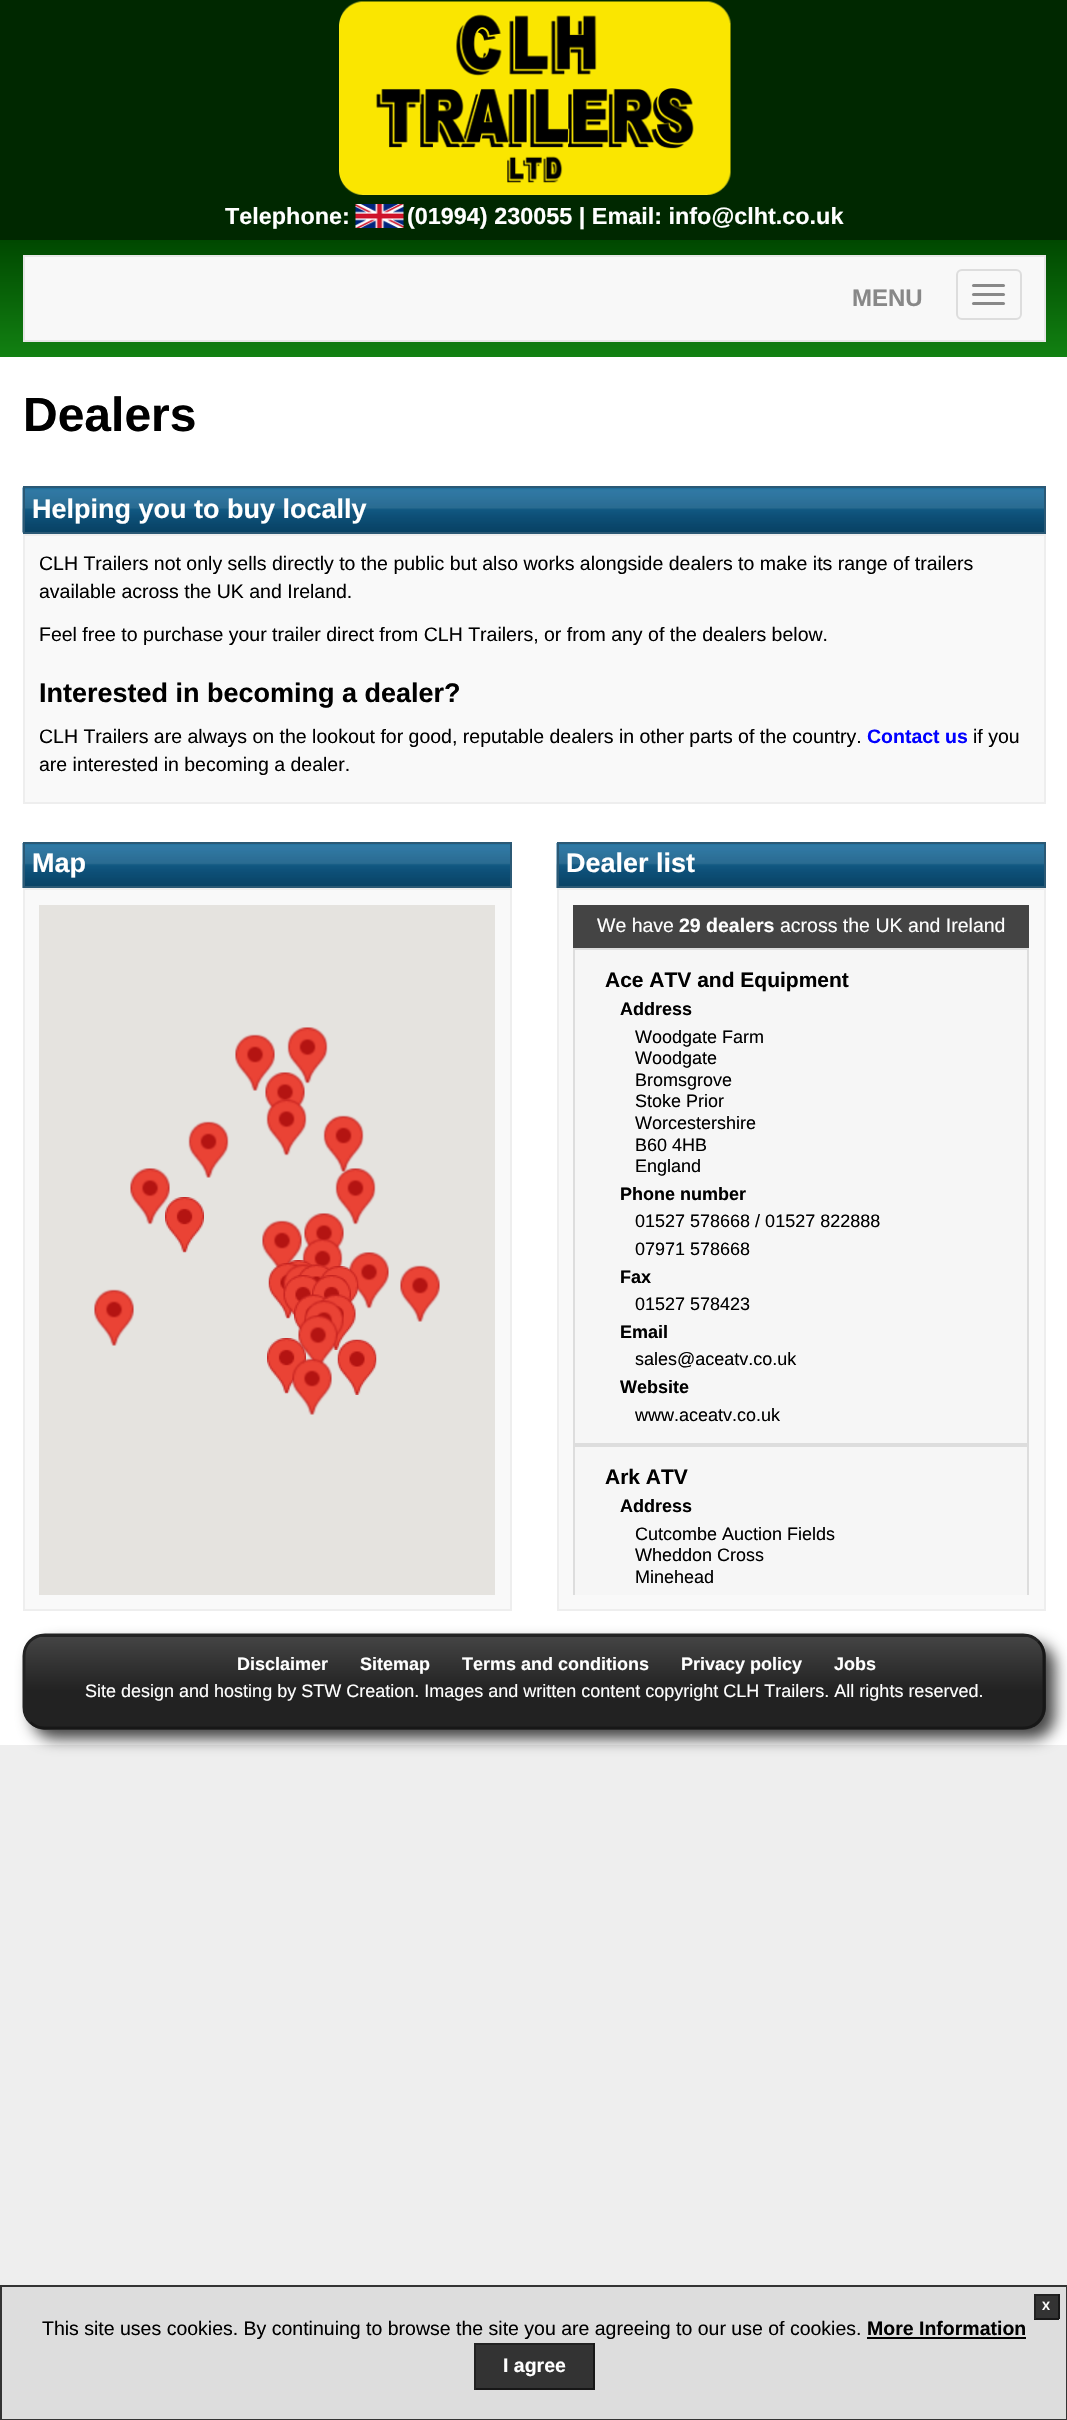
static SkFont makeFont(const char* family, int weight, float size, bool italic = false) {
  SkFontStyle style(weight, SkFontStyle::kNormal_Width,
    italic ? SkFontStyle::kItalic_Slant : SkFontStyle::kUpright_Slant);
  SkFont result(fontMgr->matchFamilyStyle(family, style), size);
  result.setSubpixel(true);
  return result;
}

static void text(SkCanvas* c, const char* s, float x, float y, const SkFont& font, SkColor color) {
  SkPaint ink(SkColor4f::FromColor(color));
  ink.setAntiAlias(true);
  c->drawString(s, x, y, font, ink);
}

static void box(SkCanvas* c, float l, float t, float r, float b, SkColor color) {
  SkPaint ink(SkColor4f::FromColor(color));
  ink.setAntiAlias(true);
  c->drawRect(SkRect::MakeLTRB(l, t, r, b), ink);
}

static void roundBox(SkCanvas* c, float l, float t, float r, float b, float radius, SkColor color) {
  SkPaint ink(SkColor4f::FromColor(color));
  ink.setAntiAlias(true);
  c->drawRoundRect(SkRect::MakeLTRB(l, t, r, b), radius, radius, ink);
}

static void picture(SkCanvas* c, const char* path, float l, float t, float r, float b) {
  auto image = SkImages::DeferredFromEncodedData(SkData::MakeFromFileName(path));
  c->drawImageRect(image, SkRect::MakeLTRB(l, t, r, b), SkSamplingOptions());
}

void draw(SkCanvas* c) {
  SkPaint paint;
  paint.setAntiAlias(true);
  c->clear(0xffeeeeee);
  box(c, 0, 357, 1067, 1745, 0xffffffff);
  box(c, 0, 0, 1067, 240, 0xff002800);
  picture(c, "img_01.png", 339, 1, 731, 195);
  SkFont face1 = makeFont("Liberation Sans", 700, 23.4f);
  text(c, "Telephone:", 225, 224, face1, 0xffffffff);
  picture(c, "img_02.png", 355, 204, 404, 228);
  text(c, "(01994) 230055 | Email: info@clht.co.uk", 407, 224, face1, 0xffffffff);
  {
    const SkColor colors[] = {0xff004800, 0xff128112};
    const float stops[] = {0, 1};
    const SkPoint ends[] = {{534, 240}, {534, 357}};
    paint.setShader(SkGradientShader::MakeLinear(ends, colors, stops, 2, SkTileMode::kClamp));
    paint.setAlpha(255);
  }
  c->drawRect(SkRect::MakeLTRB(0, 240, 1067, 357), paint);
  paint.setShader(nullptr);
  paint.setColor(0xfff8f8f8);
  c->drawRect(SkRect::MakeLTRB(24, 256, 1045, 341), paint);
  paint.setStyle(SkPaint::kStroke_Style);
  paint.setStrokeWidth(2);
  paint.setColor(0xffe7e7e7);
  c->drawRect(SkRect::MakeLTRB(24, 256, 1045, 341), paint);
  SkFont face2 = makeFont("Liberation Sans", 700, 24);
  text(c, "MENU", 852, 306, face2, 0xff888888);
  paint.setColor(0xffdddddd);
  c->drawRoundRect(SkRect::MakeLTRB(957, 270, 1021, 319), 5, 5, paint);
  roundBox(c, 972, 284, 1005, 287, 1.5f, 0xff888888);
  roundBox(c, 972, 293, 1005, 296, 1.5f, 0xff888888);
  roundBox(c, 972, 302, 1005, 305, 1.5f, 0xff888888);
  SkFont face3 = makeFont("Liberation Sans", 700, 48);
  text(c, "Dealers", 23, 431, face3, 0xff000000);
  picture(c, "img_03.png", 22, 487, 1044, 533);
  paint.setColor(0xff2b5975);
  c->drawRect(SkRect::MakeLTRB(24, 487, 1045, 533), paint);
  SkFont face4 = makeFont("Liberation Sans", 700, 27);
  text(c, "Helping you to buy locally", 32, 518, face4, 0xffffffff);
  paint.setStyle(SkPaint::kFill_Style);
  paint.setColor(0xfff9f9f9);
  c->drawRect(SkRect::MakeLTRB(24, 535, 1045, 803), paint);
  paint.setStyle(SkPaint::kStroke_Style);
  paint.setColor(0xffeeeeee);
  c->drawRect(SkRect::MakeLTRB(24, 535, 1045, 803), paint);
  SkFont face5 = makeFont("Liberation Sans", 400, 19.5f);
  text(c, "CLH Trailers not only sells directly to the public but also works alongside dealers to make its range of trailers", 39, 570, face5, 0xff000000);
  text(c, "available across the UK and Ireland.", 39, 598, face5, 0xff000000);
  text(c, "Feel free to purchase your trailer direct from CLH Trailers, or from any of the dealers below.", 39, 641, face5, 0xff000000);
  text(c, "Interested in becoming a dealer?", 39, 702, face4, 0xff000000);
  text(c, "CLH Trailers are always on the lookout for good, reputable dealers in other parts of the country.", 39, 743, face5, 0xff000000);
  SkFont face6 = makeFont("Liberation Sans", 700, 19.5f);
  text(c, "Contact us", 867, 743, face6, 0xff0000ff);
  text(c, "if you", 973, 743, face5, 0xff000000);
  text(c, "are interested in becoming a dealer.", 39, 771, face5, 0xff000000);
  picture(c, "img_04.png", 22, 843, 510, 888);
  paint.setColor(0xff2b5975);
  c->drawRect(SkRect::MakeLTRB(24, 843, 511, 887), paint);
  text(c, "Map", 32, 872, face4, 0xffffffff);
  paint.setStyle(SkPaint::kFill_Style);
  paint.setColor(0xfff9f9f9);
  c->drawRect(SkRect::MakeLTRB(24, 889, 511, 1610), paint);
  paint.setStyle(SkPaint::kStroke_Style);
  paint.setColor(0xffeeeeee);
  c->drawRect(SkRect::MakeLTRB(24, 889, 511, 1610), paint);
  box(c, 39, 905, 495, 1595, 0xffe5e3df);
  picture(c, "img_05.png", 235, 1034, 275, 1091);
  picture(c, "img_07.png", 287, 1027, 328, 1084);
  picture(c, "img_06.png", 265, 1072, 305, 1109);
  picture(c, "img_08.png", 188, 1121, 229, 1178);
  picture(c, "img_09.png", 266, 1099, 307, 1156);
  picture(c, "img_10.png", 323, 1115, 364, 1172);
  picture(c, "img_11.png", 130, 1168, 170, 1225);
  picture(c, "img_12.png", 165, 1197, 204, 1253);
  picture(c, "img_13.png", 262, 1220, 302, 1269);
  picture(c, "img_15.png", 335, 1168, 376, 1225);
  picture(c, "img_14.png", 304, 1213, 344, 1249);
  picture(c, "img_17.png", 302, 1239, 343, 1271);
  picture(c, "img_16.png", 284, 1260, 314, 1314);
  picture(c, "img_11.png", 349, 1252, 389, 1309);
  picture(c, "img_18.png", 268, 1263, 301, 1319);
  picture(c, "img_19.png", 283, 1264, 315, 1296);
  picture(c, "img_20.png", 297, 1264, 332, 1283);
  picture(c, "img_21.png", 320, 1266, 359, 1304);
  picture(c, "img_22.png", 400, 1265, 440, 1322);
  picture(c, "img_23.png", 94, 1289, 134, 1346);
  picture(c, "img_24.png", 283, 1275, 319, 1330);
  picture(c, "img_25.png", 312, 1275, 351, 1303);
  picture(c, "img_26.png", 294, 1294, 326, 1331);
  picture(c, "img_27.png", 319, 1294, 356, 1350);
  picture(c, "img_28.png", 304, 1300, 344, 1357);
  picture(c, "img_30.png", 298, 1315, 338, 1365);
  picture(c, "img_29.png", 267, 1338, 306, 1394);
  picture(c, "img_31.png", 337, 1339, 377, 1395);
  picture(c, "img_32.png", 292, 1358, 332, 1415);
  picture(c, "img_04.png", 556, 843, 1044, 888);
  paint.setColor(0xff2b5975);
  c->drawRect(SkRect::MakeLTRB(558, 843, 1045, 887), paint);
  text(c, "Dealer list", 566, 872, face4, 0xffffffff);
  paint.setStyle(SkPaint::kFill_Style);
  paint.setColor(0xfff9f9f9);
  c->drawRect(SkRect::MakeLTRB(558, 889, 1045, 1610), paint);
  paint.setStyle(SkPaint::kStroke_Style);
  paint.setColor(0xffeeeeee);
  c->drawRect(SkRect::MakeLTRB(558, 889, 1045, 1610), paint);
  box(c, 573, 905, 1029, 948, 0xff444444);
  text(c, "We have", 597, 932, face5, 0xffffffff);
  text(c, "29 dealers", 679, 932, face6, 0xffffffff);
  text(c, "across the UK and Ireland", 780, 932, face5, 0xffffffff);
  paint.setStyle(SkPaint::kFill_Style);
  paint.setColor(0xfff6f6f6);
  c->drawRect(SkRect::MakeLTRB(574, 949, 1028, 1444), paint);
  paint.setStyle(SkPaint::kStroke_Style);
  paint.setColor(0xffdddddd);
  c->drawRect(SkRect::MakeLTRB(574, 949, 1028, 1444), paint);
  SkFont face7 = makeFont("Liberation Sans", 700, 21);
  text(c, "Ace ATV and Equipment", 605, 987, face7, 0xff000000);
  SkFont face8 = makeFont("Liberation Sans", 700, 18);
  text(c, "Address", 620, 1015, face8, 0xff000000);
  SkFont face9 = makeFont("Liberation Sans", 400, 18);
  text(c, "Woodgate Farm", 635, 1043, face9, 0xff000000);
  text(c, "Woodgate", 635, 1064, face9, 0xff000000);
  text(c, "Bromsgrove", 635, 1086, face9, 0xff000000);
  text(c, "Stoke Prior", 635, 1107, face9, 0xff000000);
  text(c, "Worcestershire", 635, 1129, face9, 0xff000000);
  text(c, "B60 4HB", 635, 1151, face9, 0xff000000);
  text(c, "England", 635, 1172, face9, 0xff000000);
  text(c, "Phone number", 620, 1200, face8, 0xff000000);
  text(c, "01527 578668 / 01527 822888", 635, 1227, face9, 0xff000000);
  text(c, "07971 578668", 635, 1255, face9, 0xff000000);
  text(c, "Fax", 620, 1283, face8, 0xff000000);
  text(c, "01527 578423", 635, 1310, face9, 0xff000000);
  text(c, "Email", 620, 1338, face8, 0xff000000);
  text(c, "sales@aceatv.co.uk", 635, 1365, face9, 0xff000000);
  text(c, "Website", 620, 1393, face8, 0xff000000);
  text(c, "www.aceatv.co.uk", 635, 1421, face9, 0xff000000);
  box(c, 575, 1447, 1027, 1595, 0xfff6f6f6);
  c->save();
  c->clipRect(SkRect::MakeLTRB(573, 905, 1029, 1595));
  c->drawRect(SkRect::MakeLTRB(574, 1446, 1028, 1727), paint);
  c->restore();
  text(c, "Ark ATV", 605, 1484, face7, 0xff000000);
  text(c, "Address", 620, 1512, face8, 0xff000000);
  text(c, "Cutcombe Auction Fields", 635, 1540, face9, 0xff000000);
  text(c, "Wheddon Cross", 635, 1561, face9, 0xff000000);
  text(c, "Minehead", 635, 1583, face9, 0xff000000);
  paint.setStyle(SkPaint::kFill_Style);
  paint.setColor(0xff444444);
  paint.setMaskFilter(SkMaskFilter::MakeBlur(kNormal_SkBlurStyle, 7.5f));
  c->drawRoundRect(SkRect::MakeLTRB(32, 1643, 1055, 1739), 23, 23, paint);
  paint.setMaskFilter(nullptr);
  c->save();
  c->clipPath(SkPathBuilder().moveTo(46, 1634).lineTo(1023, 1634).cubicTo(1035.5f, 1634, 1046, 1644.5f, 1046, 1657).lineTo(1046, 1707).cubicTo(1046, 1719.5f, 1035.5f, 1730, 1023, 1730).lineTo(46, 1730).cubicTo(33.5f, 1730, 23, 1719.5f, 23, 1707).lineTo(23, 1657).cubicTo(23, 1644.5f, 33.5f, 1634, 46, 1634).close().detach(), true);
  {
    const SkColor colors[] = {0xff444444, 0xff222222};
    const float stops[] = {0, 0.6f};
    const SkPoint ends[] = {{534, 1547}, {534, 1637}};
    paint.setShader(SkGradientShader::MakeLinear(ends, colors, stops, 2, SkTileMode::kClamp));
    paint.setAlpha(255);
  }
  c->drawRect(SkRect::MakeLTRB(34, 1634, 1035, 1637), paint);
  {
    const SkColor colors[] = {0xff444444, 0xff222222};
    const float stops[] = {0, 0.6f};
    const SkPoint ends[] = {{534, 1637}, {534, 1727}};
    paint.setShader(SkGradientShader::MakeLinear(ends, colors, stops, 2, SkTileMode::kClamp));
    paint.setAlpha(255);
  }
  c->drawRect(SkRect::MakeLTRB(23, 1637, 1046, 1727), paint);
  {
    const SkColor colors[] = {0xff444444, 0xff222222};
    const float stops[] = {0, 0.6f};
    const SkPoint ends[] = {{534, 1727}, {534, 1817}};
    paint.setShader(SkGradientShader::MakeLinear(ends, colors, stops, 2, SkTileMode::kClamp));
    paint.setAlpha(255);
  }
  c->drawRect(SkRect::MakeLTRB(34, 1727, 1035, 1730), paint);
  c->restore();
  paint.setStyle(SkPaint::kStroke_Style);
  paint.setStrokeWidth(3);
  paint.setShader(nullptr);
  paint.setColor(0xff171717);
  c->drawPath(SkPathBuilder().moveTo(1038, 1641).cubicTo(1042, 1645, 1044, 1650.5f, 1044, 1656).lineTo(1044, 1707).cubicTo(1044, 1712.5f, 1042, 1718, 1038, 1722).cubicTo(1034, 1726, 1028.5f, 1728, 1023, 1728).lineTo(45, 1728).cubicTo(39.5f, 1728, 34, 1726, 30, 1722).detach(), paint);
  paint.setColor(0xff222222);
  c->drawPath(SkPathBuilder().moveTo(30, 1722).cubicTo(26, 1718, 24, 1712.5f, 24, 1707).lineTo(24, 1656).cubicTo(24, 1650.5f, 26, 1645, 30, 1641).cubicTo(34, 1637, 39.5f, 1635, 45, 1635).lineTo(1023, 1635).cubicTo(1028.5f, 1635, 1034, 1637, 1038, 1641).detach(), paint);
  text(c, "Disclaimer", 237, 1670, face8, 0xffffffff);
  text(c, "Sitemap", 360, 1670, face8, 0xffffffff);
  text(c, "Terms and conditions", 462, 1670, face8, 0xffffffff);
  text(c, "Privacy policy", 681, 1670, face8, 0xffffffff);
  text(c, "Jobs", 834, 1670, face8, 0xffffffff);
  text(c, "Site design and hosting by STW Creation. Images and written content copyright CLH Trailers. All rights reserved.", 85, 1697, face9, 0xffffffff);
  paint.setStyle(SkPaint::kFill_Style);
  paint.setColor(0xffdddddd);
  c->drawRect(SkRect::MakeLTRB(1, 2286, 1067, 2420), paint);
  paint.setStyle(SkPaint::kStroke_Style);
  paint.setStrokeWidth(2);
  paint.setColor(0xff333333);
  c->drawRect(SkRect::MakeLTRB(1, 2286, 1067, 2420), paint);
  box(c, 1036, 2296, 1058, 2318, 0xff333333);
  box(c, 1034, 2294, 1059, 2296, 0xff222222);
  box(c, 1058, 2294, 1060, 2319, 0xff171717);
  box(c, 1034, 2318, 1059, 2320, 0xff171717);
  box(c, 1034, 2294, 1036, 2319, 0xff222222);
  SkFont face10 = makeFont("Liberation Sans", 700, 12);
  text(c, "X", 1042, 2310, face10, 0xffffffff);
  text(c, "This site uses cookies. By continuing to browse the site you are agreeing to our use of cookies.", 42, 2335, face5, 0xff000000);
  text(c, "More Information", 867, 2335, face6, 0xff000000);
  box(c, 867, 2337, 1026, 2339, 0xff000000);
  box(c, 476, 2345, 593, 2388, 0xff333333);
  box(c, 474, 2343, 594, 2345, 0xff222222);
  box(c, 593, 2343, 595, 2390, 0xff171717);
  box(c, 474, 2388, 594, 2390, 0xff171717);
  box(c, 474, 2343, 476, 2390, 0xff222222);
  text(c, "I agree", 503, 2372, face6, 0xffffffff);
}
